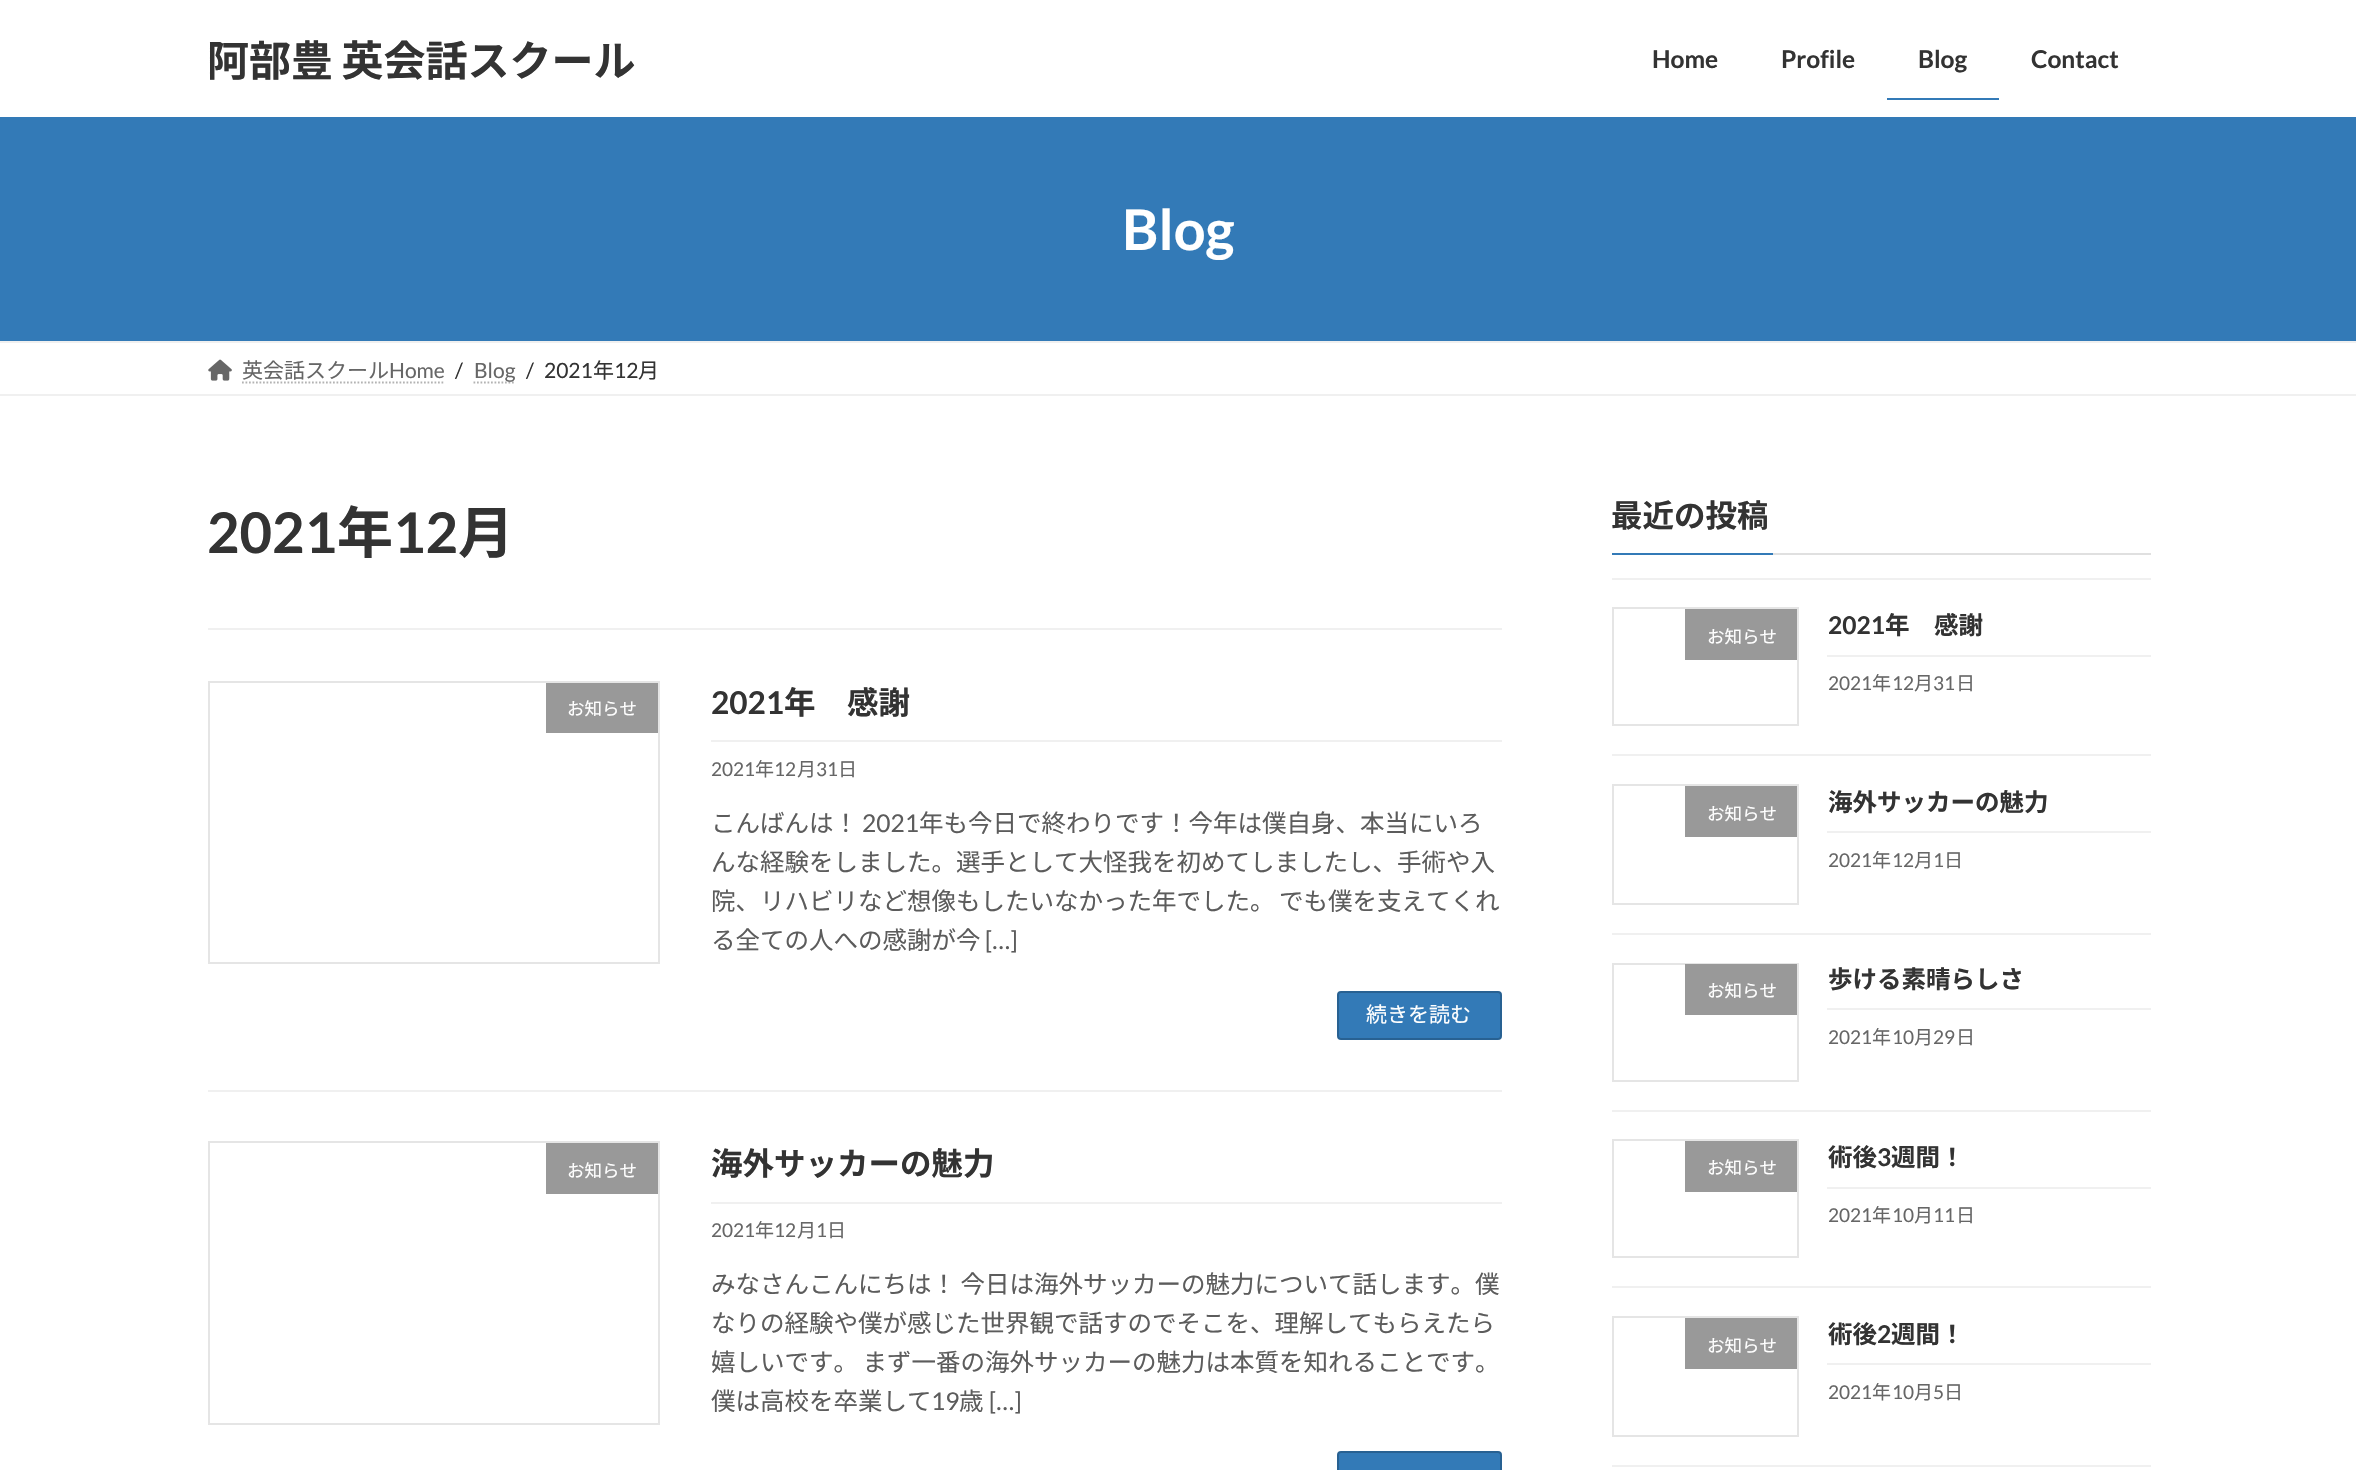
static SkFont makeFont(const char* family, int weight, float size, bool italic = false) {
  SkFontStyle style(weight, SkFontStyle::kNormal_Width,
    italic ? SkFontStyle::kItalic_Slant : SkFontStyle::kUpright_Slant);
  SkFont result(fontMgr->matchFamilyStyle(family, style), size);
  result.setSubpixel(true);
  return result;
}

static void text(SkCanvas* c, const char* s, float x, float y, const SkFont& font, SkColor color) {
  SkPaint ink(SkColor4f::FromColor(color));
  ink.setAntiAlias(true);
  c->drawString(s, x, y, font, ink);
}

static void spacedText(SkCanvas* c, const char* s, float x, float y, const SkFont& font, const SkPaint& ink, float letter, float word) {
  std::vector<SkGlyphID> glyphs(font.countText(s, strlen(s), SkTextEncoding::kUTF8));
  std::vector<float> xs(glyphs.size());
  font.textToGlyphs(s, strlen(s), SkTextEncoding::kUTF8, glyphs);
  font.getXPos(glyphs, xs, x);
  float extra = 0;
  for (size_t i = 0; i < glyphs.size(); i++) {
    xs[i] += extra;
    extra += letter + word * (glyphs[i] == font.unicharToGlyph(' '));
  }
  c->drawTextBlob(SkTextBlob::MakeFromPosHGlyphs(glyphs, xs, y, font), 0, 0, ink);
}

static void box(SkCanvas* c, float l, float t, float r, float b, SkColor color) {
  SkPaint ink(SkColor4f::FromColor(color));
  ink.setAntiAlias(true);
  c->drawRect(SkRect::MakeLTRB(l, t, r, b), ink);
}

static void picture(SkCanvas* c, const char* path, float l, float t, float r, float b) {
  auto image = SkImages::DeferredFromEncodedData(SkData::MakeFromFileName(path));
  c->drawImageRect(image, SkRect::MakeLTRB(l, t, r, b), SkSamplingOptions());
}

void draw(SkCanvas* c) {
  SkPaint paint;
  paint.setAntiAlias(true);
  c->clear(0xffffffff);
  SkFont face1 = makeFont("Noto Sans JP", 700, 42);
  paint.setColor(0xff333333);
  spacedText(c, "阿部豊 英会話スクール", 207, 76, face1, paint, 0, -1);
  SkFont face2 = makeFont("Lato", 700, 24.5f);
  text(c, "Home", 1652, 68, face2, 0xff333333);
  text(c, "Profile", 1781, 68, face2, 0xff333333);
  text(c, "Blog", 1918, 68, face2, 0xff333333);
  box(c, 1887, 98, 1999, 100, 0xff337ab7);
  text(c, "Contact", 2031, 68, face2, 0xff333333);
  box(c, 0, 117, 2356, 341, 0xff337ab7);
  SkFont face3 = makeFont("Lato", 700, 56);
  text(c, "Blog", 1122, 250, face3, 0xffffffff);
  box(c, 0, 341, 2356, 343, 0xfff0f0f0);
  box(c, 0, 394, 2356, 396, 0xfff0f0f0);
  picture(c, "img_01.png", 208, 359, 232, 381);
  SkFont face4 = makeFont("Noto Sans JP", 400, 21);
  text(c, "英会話スクール", 242, 378, face4, 0xff666666);
  SkFont face5 = makeFont("Lato", 400, 21);
  text(c, "Home", 389, 378, face5, 0xff666666);
  paint.setStyle(SkPaint::kStroke_Style);
  paint.setStrokeWidth(1.8f);
  paint.setColor(0xffb3b3b3);
  paint.setPathEffect(SkDashPathEffect::Make({{1.75f, 1.75f}}, 0));
  c->drawPath(SkPathBuilder().moveTo(242, 382.5f).lineTo(445, 382.5f).detach(), paint);
  paint.setPathEffect(nullptr);
  text(c, "/", 455, 378, face5, 0xff333333);
  paint.setPathEffect(SkDashPathEffect::Make({{1.75f, 1.75f}}, 0));
  c->drawPath(SkPathBuilder().moveTo(473.5f, 382.5f).lineTo(515, 382.5f).detach(), paint);
  paint.setPathEffect(nullptr);
  text(c, "Blog", 474, 378, face5, 0xff666666);
  text(c, "/", 526, 378, face5, 0xff333333);
  text(c, "2021", 544, 378, face5, 0xff333333);
  text(c, "年", 593, 378, face4, 0xff333333);
  text(c, "12", 614, 378, face5, 0xff333333);
  text(c, "月", 638, 378, face4, 0xff333333);
  text(c, "2021", 207, 553, face3, 0xff333333);
  SkFont face6 = makeFont("Noto Sans JP", 700, 56);
  text(c, "年", 337, 553, face6, 0xff333333);
  text(c, "12", 393, 553, face3, 0xff333333);
  text(c, "月", 458, 553, face6, 0xff333333);
  box(c, 208, 628, 1502, 630, 0xfff0f0f0);
  box(c, 208, 1090, 1502, 1092, 0xfff0f0f0);
  paint.setStrokeWidth(2);
  paint.setColor(0xffe5e5e5);
  c->drawRect(SkRect::MakeLTRB(209, 682, 659, 963), paint);
  box(c, 546, 683, 658, 733, 0xff999999);
  SkFont face7 = makeFont("Noto Sans JP", 400, 17.5f);
  text(c, "お知らせ", 567, 715, face7, 0xffffffff);
  box(c, 711, 740, 1502, 742, 0xfff0f0f0);
  SkFont face8 = makeFont("Lato", 700, 31.5f);
  text(c, "2021", 711, 714, face8, 0xff333333);
  SkFont face9 = makeFont("Noto Sans JP", 700, 31.5f);
  text(c, "年　感謝", 784, 714, face9, 0xff333333);
  SkFont face10 = makeFont("Lato", 400, 19);
  text(c, "2021", 711, 776, face10, 0xff666666);
  SkFont face11 = makeFont("Noto Sans JP", 400, 19);
  text(c, "年", 755, 776, face11, 0xff666666);
  text(c, "12", 774, 776, face10, 0xff666666);
  text(c, "月", 797, 776, face11, 0xff666666);
  text(c, "31", 816, 776, face10, 0xff666666);
  text(c, "日", 838, 776, face11, 0xff666666);
  SkFont face12 = makeFont("Noto Sans JP", 400, 24.5f);
  text(c, "こんばんは！", 711, 832, face12, 0xff5c5c5c);
  SkFont face13 = makeFont("Lato", 400, 24.5f);
  text(c, "2021", 862, 832, face13, 0xff5c5c5c);
  text(c, "年も今日で終わりです！今年は僕自身、本当にいろ", 919, 832, face12, 0xff5c5c5c);
  text(c, "んな経験をしました。選手として大怪我を初めてしましたし、手術や入", 711, 871, face12, 0xff5c5c5c);
  paint.setStyle(SkPaint::kFill_Style);
  paint.setColor(0xff5c5c5c);
  spacedText(c, "院、リハビリなど想像もしたいなかった年でした。 でも僕を支えてくれ", 711, 910, face12, paint, 0, -1);
  text(c, "る全ての人への感謝が今", 711, 949, face12, 0xff5c5c5c);
  text(c, "[…]", 985, 949, face13, 0xff5c5c5c);
  paint.setColor(0xff337ab7);
  c->drawRoundRect(SkRect::MakeLTRB(1338, 992, 1501, 1039), 3, 3, paint);
  paint.setStyle(SkPaint::kStroke_Style);
  paint.setColor(0xff286192);
  c->drawRoundRect(SkRect::MakeLTRB(1338, 992, 1501, 1039), 3, 3, paint);
  text(c, "続きを読む", 1366, 1022, face4, 0xffffffff);
  paint.setColor(0xffe5e5e5);
  c->drawRect(SkRect::MakeLTRB(209, 1142, 659, 1424), paint);
  box(c, 546, 1143, 658, 1194, 0xff999999);
  text(c, "お知らせ", 567, 1177, face7, 0xffffffff);
  box(c, 711, 1202, 1502, 1204, 0xfff0f0f0);
  text(c, "海外サッカーの魅力", 711, 1175, face9, 0xff333333);
  text(c, "2021", 711, 1237, face10, 0xff666666);
  text(c, "年", 755, 1237, face11, 0xff666666);
  text(c, "12", 774, 1237, face10, 0xff666666);
  text(c, "月", 797, 1237, face11, 0xff666666);
  text(c, "1", 816, 1237, face10, 0xff666666);
  text(c, "日", 827, 1237, face11, 0xff666666);
  paint.setStyle(SkPaint::kFill_Style);
  paint.setColor(0xff5c5c5c);
  spacedText(c, "みなさんこんにちは！ 今日は海外サッカーの魅力について話します。僕", 711, 1293, face12, paint, 0, -1);
  text(c, "なりの経験や僕が感じた世界観で話すのでそこを、理解してもらえたら", 711, 1332, face12, 0xff5c5c5c);
  spacedText(c, "嬉しいです。 まず一番の海外サッカーの魅力は本質を知れることです。", 711, 1371, face12, paint, 0, -1);
  text(c, "僕は高校を卒業して", 711, 1410, face12, 0xff5c5c5c);
  text(c, "19", 931, 1410, face13, 0xff5c5c5c);
  text(c, "歳", 959, 1410, face12, 0xff5c5c5c);
  text(c, "[…]", 989, 1410, face13, 0xff5c5c5c);
  paint.setColor(0xff337ab7);
  c->drawRoundRect(SkRect::MakeLTRB(1338, 1452, 1501, 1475), 3, 3, paint);
  paint.setStyle(SkPaint::kStroke_Style);
  paint.setColor(0xff286192);
  c->drawRoundRect(SkRect::MakeLTRB(1338, 1452, 1501, 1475), 3, 3, paint);
  box(c, 1773, 553, 2151, 555, 0xffe0e0e0);
  text(c, "最近の投稿", 1611, 527, face9, 0xff333333);
  box(c, 1612, 553, 1773, 555, 0xff337ab7);
  box(c, 1612, 578, 2151, 580, 0xfff0f0f0);
  box(c, 1612, 754, 2151, 756, 0xfff0f0f0);
  paint.setColor(0xffe5e5e5);
  c->drawRect(SkRect::MakeLTRB(1613, 608, 1798, 725), paint);
  box(c, 1685, 609, 1797, 660, 0xff999999);
  text(c, "お知らせ", 1707, 643, face7, 0xffffffff);
  box(c, 1827, 655, 2151, 657, 0xfff0f0f0);
  text(c, "2021", 1828, 634, face2, 0xff333333);
  SkFont face14 = makeFont("Noto Sans JP", 700, 24.5f);
  text(c, "年　感謝", 1885, 634, face14, 0xff333333);
  text(c, "2021", 1828, 690, face10, 0xff666666);
  text(c, "年", 1872, 690, face11, 0xff666666);
  text(c, "12", 1892, 690, face10, 0xff666666);
  text(c, "月", 1914, 690, face11, 0xff666666);
  text(c, "31", 1933, 690, face10, 0xff666666);
  text(c, "日", 1956, 690, face11, 0xff666666);
  box(c, 1612, 933, 2151, 935, 0xfff0f0f0);
  c->drawRect(SkRect::MakeLTRB(1613, 785, 1798, 904), paint);
  box(c, 1685, 786, 1797, 837, 0xff999999);
  text(c, "お知らせ", 1707, 820, face7, 0xffffffff);
  box(c, 1827, 831, 2151, 833, 0xfff0f0f0);
  text(c, "海外サッカーの魅力", 1828, 811, face14, 0xff333333);
  text(c, "2021", 1828, 867, face10, 0xff666666);
  text(c, "年", 1872, 867, face11, 0xff666666);
  text(c, "12", 1892, 867, face10, 0xff666666);
  text(c, "月", 1914, 867, face11, 0xff666666);
  text(c, "1", 1933, 867, face10, 0xff666666);
  text(c, "日", 1944, 867, face11, 0xff666666);
  box(c, 1612, 1110, 2151, 1112, 0xfff0f0f0);
  c->drawRect(SkRect::MakeLTRB(1613, 964, 1798, 1081), paint);
  box(c, 1685, 964, 1797, 1015, 0xff999999);
  text(c, "お知らせ", 1707, 997, face7, 0xffffffff);
  box(c, 1827, 1008, 2151, 1010, 0xfff0f0f0);
  text(c, "歩ける素晴らしさ", 1828, 988, face14, 0xff333333);
  text(c, "2021", 1828, 1044, face10, 0xff666666);
  text(c, "年", 1872, 1044, face11, 0xff666666);
  text(c, "10", 1892, 1044, face10, 0xff666666);
  text(c, "月", 1914, 1044, face11, 0xff666666);
  text(c, "29", 1933, 1044, face10, 0xff666666);
  text(c, "日", 1956, 1044, face11, 0xff666666);
  box(c, 1612, 1286, 2151, 1288, 0xfff0f0f0);
  c->drawRect(SkRect::MakeLTRB(1613, 1140, 1798, 1257), paint);
  box(c, 1685, 1141, 1797, 1192, 0xff999999);
  text(c, "お知らせ", 1707, 1174, face7, 0xffffffff);
  box(c, 1827, 1187, 2151, 1189, 0xfff0f0f0);
  text(c, "術後", 1828, 1166, face14, 0xff333333);
  text(c, "3", 1877, 1166, face2, 0xff333333);
  text(c, "週間！", 1891, 1166, face14, 0xff333333);
  text(c, "2021", 1828, 1222, face10, 0xff666666);
  text(c, "年", 1872, 1222, face11, 0xff666666);
  text(c, "10", 1892, 1222, face10, 0xff666666);
  text(c, "月", 1914, 1222, face11, 0xff666666);
  text(c, "11", 1933, 1222, face10, 0xff666666);
  text(c, "日", 1956, 1222, face11, 0xff666666);
  box(c, 1612, 1465, 2151, 1467, 0xfff0f0f0);
  c->drawRect(SkRect::MakeLTRB(1613, 1317, 1798, 1436), paint);
  box(c, 1685, 1318, 1797, 1369, 0xff999999);
  text(c, "お知らせ", 1707, 1352, face7, 0xffffffff);
  box(c, 1827, 1363, 2151, 1365, 0xfff0f0f0);
  text(c, "術後", 1828, 1343, face14, 0xff333333);
  text(c, "2", 1877, 1343, face2, 0xff333333);
  text(c, "週間！", 1891, 1343, face14, 0xff333333);
  text(c, "2021", 1828, 1399, face10, 0xff666666);
  text(c, "年", 1872, 1399, face11, 0xff666666);
  text(c, "10", 1892, 1399, face10, 0xff666666);
  text(c, "月", 1914, 1399, face11, 0xff666666);
  text(c, "5", 1933, 1399, face10, 0xff666666);
  text(c, "日", 1944, 1399, face11, 0xff666666);
}
